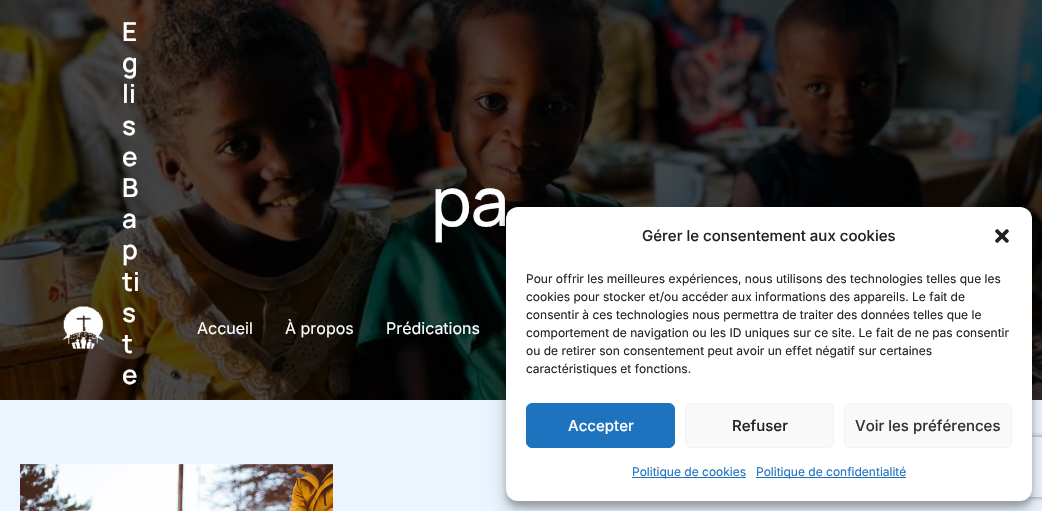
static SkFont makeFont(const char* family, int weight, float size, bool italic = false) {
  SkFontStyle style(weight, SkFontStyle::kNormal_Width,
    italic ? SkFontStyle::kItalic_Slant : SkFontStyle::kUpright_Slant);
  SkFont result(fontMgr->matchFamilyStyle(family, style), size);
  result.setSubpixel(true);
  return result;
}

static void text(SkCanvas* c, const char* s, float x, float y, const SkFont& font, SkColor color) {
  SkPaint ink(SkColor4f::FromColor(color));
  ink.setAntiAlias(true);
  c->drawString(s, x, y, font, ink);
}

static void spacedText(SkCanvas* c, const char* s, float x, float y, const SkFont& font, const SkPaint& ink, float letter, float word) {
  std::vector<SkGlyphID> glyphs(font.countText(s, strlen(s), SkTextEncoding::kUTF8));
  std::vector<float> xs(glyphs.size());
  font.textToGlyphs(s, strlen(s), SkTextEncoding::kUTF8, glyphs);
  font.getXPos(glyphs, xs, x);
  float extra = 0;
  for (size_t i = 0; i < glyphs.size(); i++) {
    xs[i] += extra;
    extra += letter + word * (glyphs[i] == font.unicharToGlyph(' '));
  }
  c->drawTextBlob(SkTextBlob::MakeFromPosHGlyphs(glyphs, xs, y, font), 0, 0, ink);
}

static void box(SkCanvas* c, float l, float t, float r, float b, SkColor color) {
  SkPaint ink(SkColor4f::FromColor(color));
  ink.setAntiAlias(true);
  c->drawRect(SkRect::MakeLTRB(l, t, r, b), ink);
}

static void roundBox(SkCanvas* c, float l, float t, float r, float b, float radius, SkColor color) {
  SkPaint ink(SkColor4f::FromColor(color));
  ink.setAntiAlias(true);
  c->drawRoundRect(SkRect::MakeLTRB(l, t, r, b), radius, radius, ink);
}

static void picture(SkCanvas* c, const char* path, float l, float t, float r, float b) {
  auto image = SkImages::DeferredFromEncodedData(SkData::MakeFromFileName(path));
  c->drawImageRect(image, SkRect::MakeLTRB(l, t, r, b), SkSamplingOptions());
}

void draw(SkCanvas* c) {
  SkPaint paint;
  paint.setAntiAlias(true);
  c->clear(0xffebf5ff);
  picture(c, "img_02.png", 0, 0, 1042, 400);
  picture(c, "img_01.png", 63, 306, 104, 349);
  SkFont face1 = makeFont("Manrope", 600, 26);
  text(c, "E", 122, 41, face1, 0xffffffff);
  text(c, "g", 122, 72, face1, 0xffffffff);
  text(c, "li", 122, 103, face1, 0xffffffff);
  text(c, "s", 122, 135, face1, 0xffffffff);
  text(c, "e", 122, 166, face1, 0xffffffff);
  text(c, "B", 122, 197, face1, 0xffffffff);
  text(c, "a", 122, 228, face1, 0xffffffff);
  text(c, "p", 122, 259, face1, 0xffffffff);
  text(c, "ti", 122, 291, face1, 0xffffffff);
  text(c, "s", 122, 322, face1, 0xffffffff);
  text(c, "t", 122, 353, face1, 0xffffffff);
  text(c, "e", 122, 384, face1, 0xffffffff);
  SkFont face2 = makeFont("Inter", 400, 16);
  text(c, "Accueil", 197, 334, face2, 0xffffffff);
  text(c, "À propos", 285, 334, face2, 0xffffffff);
  text(c, "Prédications", 386, 334, face2, 0xffffffff);
  SkFont face3 = makeFont("Manrope", 500, 68);
  paint.setColor(0xffffffff);
  spacedText(c, "pa", 431, 226, face3, paint, -1, 0);
  picture(c, "img_03.png", 20, 464, 333, 511);
  paint.setColor(0x3b000000);
  paint.setMaskFilter(SkMaskFilter::MakeBlur(kNormal_SkBlurStyle, 3));
  c->drawRoundRect(SkRect::MakeLTRB(506, 213, 1032, 507), 12, 12, paint);
  paint.setMaskFilter(nullptr);
  paint.setColor(0x30000000);
  paint.setMaskFilter(SkMaskFilter::MakeBlur(kNormal_SkBlurStyle, 10));
  c->drawRoundRect(SkRect::MakeLTRB(506, 217, 1032, 511), 12, 12, paint);
  paint.setMaskFilter(nullptr);
  c->save();
  c->clipPath(SkPathBuilder(SkPathFillType::kEvenOdd).moveTo(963, 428).lineTo(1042, 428).lineTo(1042, 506).lineTo(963, 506).close().moveTo(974, 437).lineTo(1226, 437).cubicTo(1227, 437, 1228, 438, 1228, 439).lineTo(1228, 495).cubicTo(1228, 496, 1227, 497, 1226, 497).lineTo(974, 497).cubicTo(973, 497, 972, 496, 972, 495).lineTo(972, 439).cubicTo(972, 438, 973, 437, 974, 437).close().detach(), true);
  paint.setColor(0xff808080);
  paint.setMaskFilter(SkMaskFilter::MakeBlur(kNormal_SkBlurStyle, 2.5f));
  c->drawRoundRect(SkRect::MakeLTRB(972, 437, 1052, 497), 2, 2, paint);
  paint.setMaskFilter(nullptr);
  c->restore();
  roundBox(c, 506, 207, 1032, 501, 12, 0xffffffff);
  SkFont face4 = makeFont("Inter", 500, 15);
  text(c, "Gérer le consentement aux cookies", 642, 241, face4, 0xff222222);
  picture(c, "img_04.png", 995, 229, 1009, 243);
  SkFont face5 = makeFont("Inter", 400, 12);
  text(c, "Pour offrir les meilleures expériences, nous utilisons des technologies telles que les", 526, 283, face5, 0xff222222);
  text(c, "cookies pour stocker et/ou accéder aux informations des appareils. Le fait de", 526, 301, face5, 0xff222222);
  text(c, "consentir à ces technologies nous permettra de traiter des données telles que le", 526, 319, face5, 0xff222222);
  text(c, "comportement de navigation ou les ID uniques sur ce site. Le fait de ne pas consentir", 526, 337, face5, 0xff222222);
  text(c, "ou de retirer son consentement peut avoir un effet négatif sur certaines", 526, 355, face5, 0xff222222);
  text(c, "caractéristiques et fonctions.", 526, 373, face5, 0xff222222);
  paint.setColor(0xff1e73be);
  c->drawRoundRect(SkRect::MakeLTRB(526.5f, 403.5f, 674.5f, 447.5f), 5.5f, 5.5f, paint);
  paint.setStyle(SkPaint::kStroke_Style);
  paint.setStrokeWidth(1);
  c->drawRoundRect(SkRect::MakeLTRB(526.5f, 403.5f, 674.5f, 447.5f), 5.5f, 5.5f, paint);
  text(c, "Accepter", 568, 431, face4, 0xffffffff);
  paint.setStyle(SkPaint::kFill_Style);
  paint.setColor(0xfff9f9f9);
  c->drawRoundRect(SkRect::MakeLTRB(685.5f, 403.5f, 833.5f, 447.5f), 5.5f, 5.5f, paint);
  paint.setStyle(SkPaint::kStroke_Style);
  paint.setColor(0xfff2f2f2);
  c->drawRoundRect(SkRect::MakeLTRB(685.5f, 403.5f, 833.5f, 447.5f), 5.5f, 5.5f, paint);
  text(c, "Refuser", 732, 431, face4, 0xff222222);
  paint.setStyle(SkPaint::kFill_Style);
  paint.setColor(0xfff9f9f9);
  c->drawRoundRect(SkRect::MakeLTRB(844.5f, 403.5f, 1011.5f, 447.5f), 5.5f, 5.5f, paint);
  paint.setStyle(SkPaint::kStroke_Style);
  paint.setColor(0xfff2f2f2);
  c->drawRoundRect(SkRect::MakeLTRB(844.5f, 403.5f, 1011.5f, 447.5f), 5.5f, 5.5f, paint);
  text(c, "Voir les préférences", 855, 431, face4, 0xff333333);
  box(c, 632, 477, 746, 478, 0xff1e73be);
  text(c, "Politique de cookies", 632, 476, face5, 0xff1e73be);
  box(c, 756, 477, 906, 478, 0xff1e73be);
  text(c, "Politique de confidentialité", 756, 476, face5, 0xff1e73be);
}
